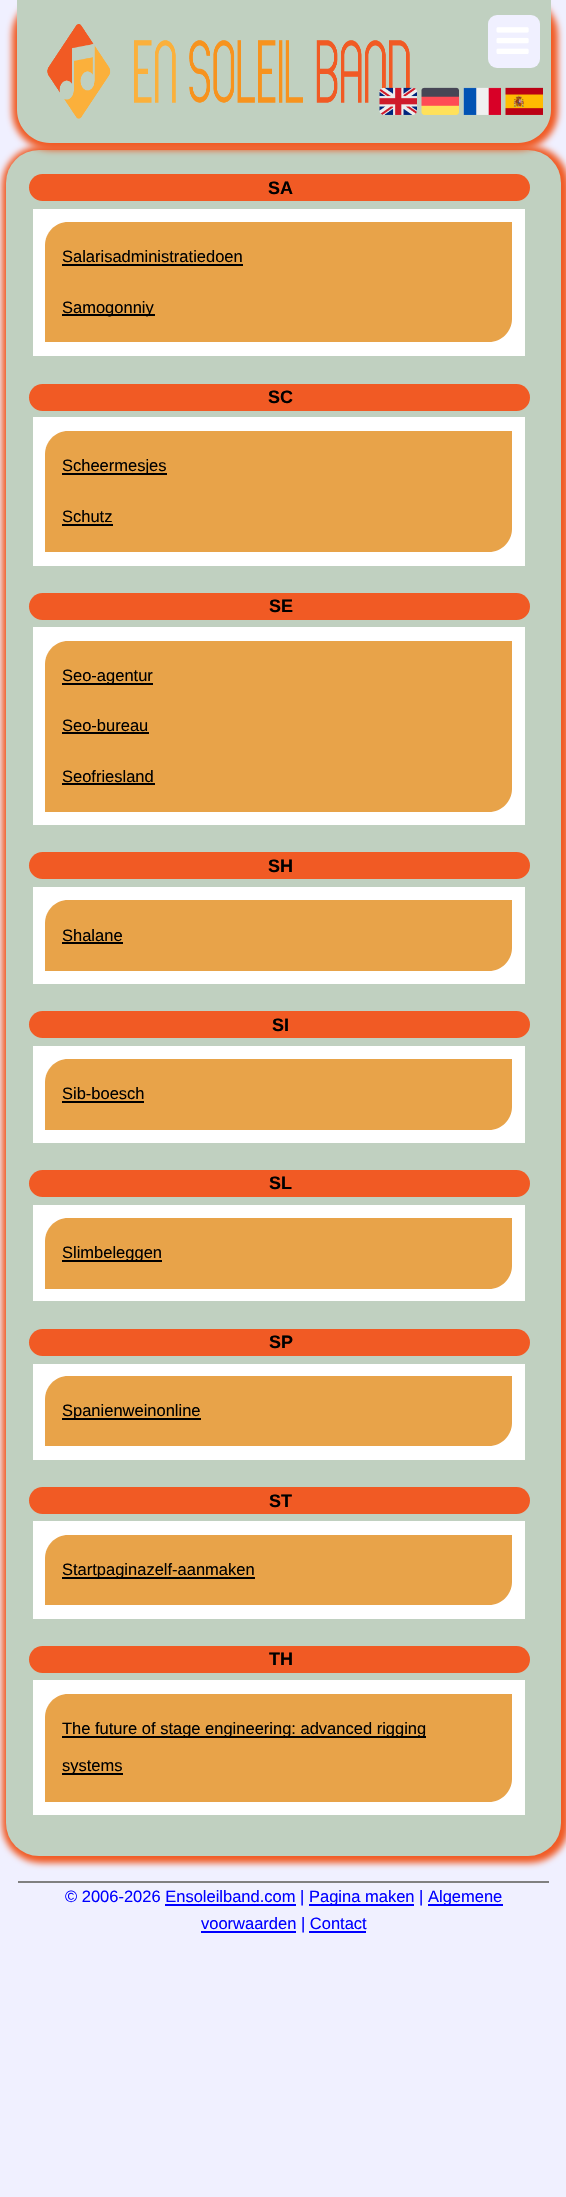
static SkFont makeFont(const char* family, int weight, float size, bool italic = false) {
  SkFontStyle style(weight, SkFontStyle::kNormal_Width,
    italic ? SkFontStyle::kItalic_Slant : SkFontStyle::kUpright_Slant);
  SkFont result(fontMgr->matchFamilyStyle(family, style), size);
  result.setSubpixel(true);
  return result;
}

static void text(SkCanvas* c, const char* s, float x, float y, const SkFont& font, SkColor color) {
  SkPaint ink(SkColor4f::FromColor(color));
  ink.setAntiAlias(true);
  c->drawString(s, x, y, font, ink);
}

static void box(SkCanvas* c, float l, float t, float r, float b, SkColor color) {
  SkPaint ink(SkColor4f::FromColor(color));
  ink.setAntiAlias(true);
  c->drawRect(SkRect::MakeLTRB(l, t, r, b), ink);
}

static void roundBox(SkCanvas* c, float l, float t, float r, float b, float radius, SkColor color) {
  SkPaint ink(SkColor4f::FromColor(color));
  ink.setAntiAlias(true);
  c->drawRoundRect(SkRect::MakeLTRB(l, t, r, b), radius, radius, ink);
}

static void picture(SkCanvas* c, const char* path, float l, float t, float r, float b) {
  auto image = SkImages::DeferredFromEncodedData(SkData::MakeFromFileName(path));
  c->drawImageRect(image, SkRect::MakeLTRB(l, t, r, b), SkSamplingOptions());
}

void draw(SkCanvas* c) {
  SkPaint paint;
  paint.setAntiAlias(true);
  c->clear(0xfff0f0ff);
  paint.setColor(0xfff15a24);
  paint.setMaskFilter(SkMaskFilter::MakeBlur(kNormal_SkBlurStyle, 3));
  c->drawRoundRect(SkRect::MakeLTRB(2, 146, 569, 1863), 39, 39, paint);
  paint.setMaskFilter(nullptr);
  roundBox(c, 6, 150, 561, 1856, 33, 0xffc0d0c0);
  paint.setMaskFilter(SkMaskFilter::MakeBlur(kNormal_SkBlurStyle, 3));
  c->drawRoundRect(SkRect::MakeLTRB(12, -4, 558, 150), 39, 39, paint);
  paint.setMaskFilter(nullptr);
  paint.setColor(0xffc0d0c0);
  c->drawPath(SkPathBuilder().moveTo(17, 0).lineTo(551, 0).lineTo(551, 110).cubicTo(551, 128, 536, 143, 518, 143).lineTo(50, 143).cubicTo(32, 143, 17, 128, 17, 110).close().detach(), paint);
  picture(c, "img_01.png", 47, 24, 410, 119);
  roundBox(c, 488, 15, 540, 68, 9, 0xfff0f0ff);
  picture(c, "img_02.png", 496, 27, 529, 54);
  picture(c, "img_03.png", 379, 87, 417, 115);
  picture(c, "img_04.png", 421, 87, 459, 115);
  picture(c, "img_05.png", 463, 87, 501, 115);
  picture(c, "img_06.png", 505, 87, 543, 115);
  roundBox(c, 29, 174, 530, 201, 13.5f, 0xfff15a24);
  SkFont face1 = makeFont("Liberation Sans", 700, 18);
  text(c, "SA", 268, 194, face1, 0xff000000);
  box(c, 33, 209, 525, 356, 0xffffffff);
  paint.setColor(0xffe8a349);
  c->drawPath(SkPathBuilder().moveTo(68, 222).lineTo(512, 222).lineTo(512, 319).cubicTo(512, 331.5f, 501.5f, 342, 489, 342).lineTo(45, 342).lineTo(45, 245).cubicTo(45, 232.5f, 55.5f, 222, 68, 222).close().detach(), paint);
  SkFont face2 = makeFont("Liberation Sans", 400, 16.5f);
  text(c, "Salarisadministratiedoen", 62, 262, face2, 0xff000000);
  box(c, 62, 264, 243, 266, 0xff000000);
  box(c, 62, 314, 155, 316, 0xff000000);
  text(c, "Samogonniy", 62, 313, face2, 0xff000000);
  roundBox(c, 29, 384, 530, 411, 13.5f, 0xfff15a24);
  text(c, "SC", 268, 403, face1, 0xff000000);
  box(c, 33, 417, 525, 566, 0xffffffff);
  c->drawPath(SkPathBuilder().moveTo(68, 431).lineTo(512, 431).lineTo(512, 529).cubicTo(512, 541.5f, 501.5f, 552, 489, 552).lineTo(45, 552).lineTo(45, 454).cubicTo(45, 441.5f, 55.5f, 431, 68, 431).close().detach(), paint);
  box(c, 62, 473, 167, 475, 0xff000000);
  text(c, "Scheermesjes", 62, 471, face2, 0xff000000);
  text(c, "Schutz", 62, 522, face2, 0xff000000);
  box(c, 62, 524, 113, 526, 0xff000000);
  roundBox(c, 29, 593, 530, 620, 13.5f, 0xfff15a24);
  text(c, "SE", 269, 612, face1, 0xff000000);
  box(c, 33, 627, 525, 825, 0xffffffff);
  c->drawPath(SkPathBuilder().moveTo(68, 641).lineTo(512, 641).lineTo(512, 789).cubicTo(512, 801.5f, 501.5f, 812, 489, 812).lineTo(45, 812).lineTo(45, 664).cubicTo(45, 651.5f, 55.5f, 641, 68, 641).close().detach(), paint);
  box(c, 62, 683, 153, 685, 0xff000000);
  text(c, "Seo-agentur", 62, 681, face2, 0xff000000);
  text(c, "Seo-bureau", 62, 731, face2, 0xff000000);
  box(c, 62, 732, 149, 734, 0xff000000);
  text(c, "Seofriesland", 62, 782, face2, 0xff000000);
  box(c, 62, 783, 155, 785, 0xff000000);
  roundBox(c, 29, 852, 530, 879, 13.5f, 0xfff15a24);
  text(c, "SH", 268, 872, face1, 0xff000000);
  box(c, 33, 887, 525, 984, 0xffffffff);
  c->drawPath(SkPathBuilder().moveTo(68, 900).lineTo(512, 900).lineTo(512, 948).cubicTo(512, 960.5f, 501.5f, 971, 489, 971).lineTo(45, 971).lineTo(45, 923).cubicTo(45, 910.5f, 55.5f, 900, 68, 900).close().detach(), paint);
  text(c, "Shalane", 62, 941, face2, 0xff000000);
  box(c, 62, 942, 123, 944, 0xff000000);
  roundBox(c, 29, 1011, 530, 1038, 13.5f, 0xfff15a24);
  text(c, "SI", 272, 1031, face1, 0xff000000);
  box(c, 33, 1046, 525, 1143, 0xffffffff);
  c->drawPath(SkPathBuilder().moveTo(68, 1059).lineTo(512, 1059).lineTo(512, 1107).cubicTo(512, 1119.5f, 501.5f, 1130, 489, 1130).lineTo(45, 1130).lineTo(45, 1082).cubicTo(45, 1069.5f, 55.5f, 1059, 68, 1059).close().detach(), paint);
  text(c, "Sib-boesch", 62, 1099, face2, 0xff000000);
  box(c, 62, 1101, 144, 1103, 0xff000000);
  roundBox(c, 29, 1170, 530, 1197, 13.5f, 0xfff15a24);
  text(c, "SL", 269, 1189, face1, 0xff000000);
  box(c, 33, 1205, 525, 1301, 0xffffffff);
  c->drawPath(SkPathBuilder().moveTo(68, 1218).lineTo(512, 1218).lineTo(512, 1266).cubicTo(512, 1278.5f, 501.5f, 1289, 489, 1289).lineTo(45, 1289).lineTo(45, 1241).cubicTo(45, 1228.5f, 55.5f, 1218, 68, 1218).close().detach(), paint);
  box(c, 62, 1260, 162, 1262, 0xff000000);
  text(c, "Slimbeleggen", 62, 1258, face2, 0xff000000);
  roundBox(c, 29, 1329, 530, 1356, 13.5f, 0xfff15a24);
  text(c, "SP", 269, 1348, face1, 0xff000000);
  box(c, 33, 1364, 525, 1460, 0xffffffff);
  c->drawPath(SkPathBuilder().moveTo(68, 1376).lineTo(512, 1376).lineTo(512, 1423).cubicTo(512, 1435.5f, 501.5f, 1446, 489, 1446).lineTo(45, 1446).lineTo(45, 1399).cubicTo(45, 1386.5f, 55.5f, 1376, 68, 1376).close().detach(), paint);
  box(c, 62, 1418, 201, 1420, 0xff000000);
  text(c, "Spanienweinonline", 62, 1416, face2, 0xff000000);
  roundBox(c, 29, 1487, 530, 1514, 13.5f, 0xfff15a24);
  text(c, "ST", 269, 1507, face1, 0xff000000);
  box(c, 33, 1521, 525, 1619, 0xffffffff);
  c->drawPath(SkPathBuilder().moveTo(68, 1535).lineTo(512, 1535).lineTo(512, 1582).cubicTo(512, 1594.5f, 501.5f, 1605, 489, 1605).lineTo(45, 1605).lineTo(45, 1558).cubicTo(45, 1545.5f, 55.5f, 1535, 68, 1535).close().detach(), paint);
  box(c, 62, 1577, 255, 1579, 0xff000000);
  text(c, "Startpaginazelf-aanmaken", 62, 1575, face2, 0xff000000);
  roundBox(c, 29, 1646, 530, 1673, 13.5f, 0xfff15a24);
  text(c, "TH", 269, 1665, face1, 0xff000000);
  box(c, 33, 1680, 525, 1815, 0xffffffff);
  c->drawPath(SkPathBuilder().moveTo(68, 1694).lineTo(512, 1694).lineTo(512, 1779).cubicTo(512, 1791.5f, 501.5f, 1802, 489, 1802).lineTo(45, 1802).lineTo(45, 1717).cubicTo(45, 1704.5f, 55.5f, 1694, 68, 1694).close().detach(), paint);
  box(c, 62, 1736, 426, 1738, 0xff000000);
  text(c, "The future of stage engineering: advanced rigging", 62, 1734, face2, 0xff000000);
  box(c, 62, 1773, 123, 1775, 0xff000000);
  text(c, "systems", 62, 1771, face2, 0xff000000);
  box(c, 18, 1881, 549, 1883, 0xff808080);
  text(c, "© 2006-2026 Ensoleilband.com |", 65, 1902, face2, 0xff0000ff);
  box(c, 309, 1904, 414, 1906, 0xff0000ff);
  text(c, "Pagina maken |", 309, 1902, face2, 0xff0000ff);
  box(c, 428, 1904, 503, 1906, 0xff0000ff);
  text(c, "Algemene", 428, 1902, face2, 0xff0000ff);
  box(c, 165, 1904, 296, 1906, 0xff0000ff);
  box(c, 201, 1931, 296, 1933, 0xff0000ff);
  text(c, "voorwaarden | Contact", 201, 1929, face2, 0xff0000ff);
  box(c, 309, 1931, 366, 1933, 0xff0000ff);
}
